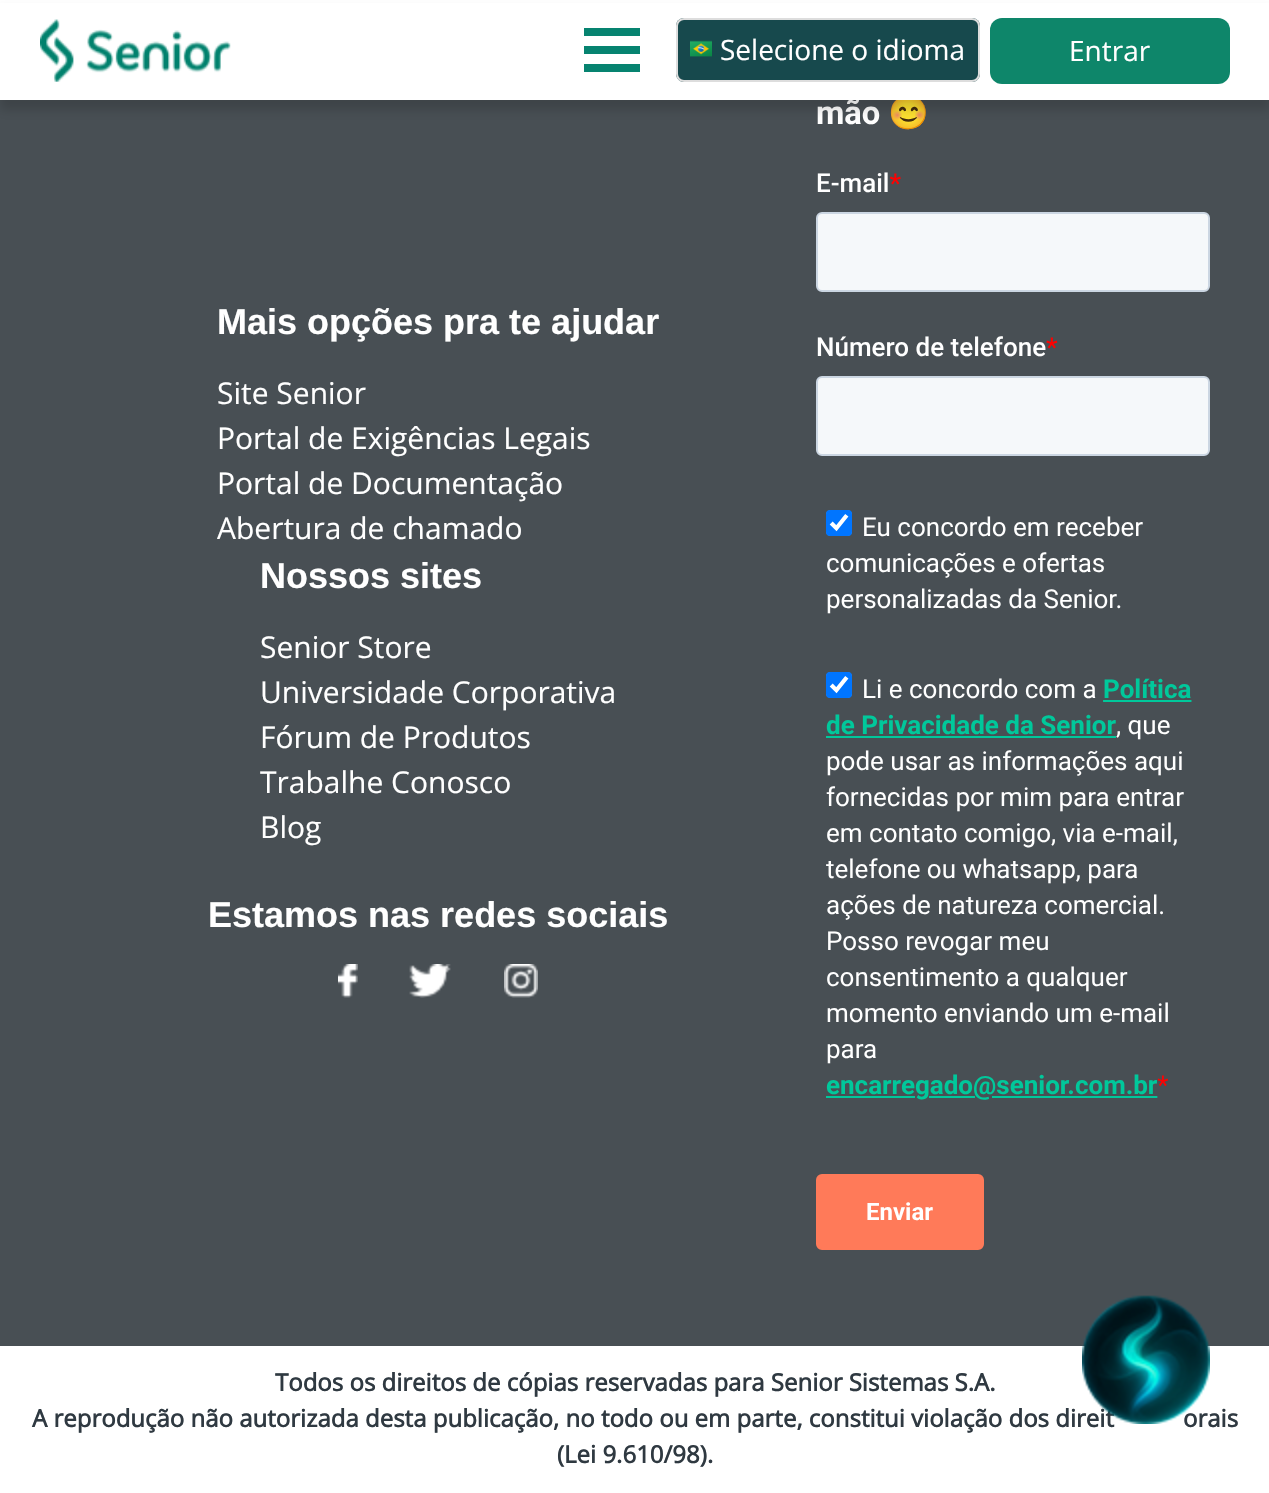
static SkFont makeFont(const char* family, int weight, float size, bool italic = false) {
  SkFontStyle style(weight, SkFontStyle::kNormal_Width,
    italic ? SkFontStyle::kItalic_Slant : SkFontStyle::kUpright_Slant);
  SkFont result(fontMgr->matchFamilyStyle(family, style), size);
  result.setSubpixel(true);
  return result;
}

static void text(SkCanvas* c, const char* s, float x, float y, const SkFont& font, SkColor color) {
  SkPaint ink(SkColor4f::FromColor(color));
  ink.setAntiAlias(true);
  c->drawString(s, x, y, font, ink);
}

static void box(SkCanvas* c, float l, float t, float r, float b, SkColor color) {
  SkPaint ink(SkColor4f::FromColor(color));
  ink.setAntiAlias(true);
  c->drawRect(SkRect::MakeLTRB(l, t, r, b), ink);
}

static void roundBox(SkCanvas* c, float l, float t, float r, float b, float radius, SkColor color) {
  SkPaint ink(SkColor4f::FromColor(color));
  ink.setAntiAlias(true);
  c->drawRoundRect(SkRect::MakeLTRB(l, t, r, b), radius, radius, ink);
}

static void picture(SkCanvas* c, const char* path, float l, float t, float r, float b) {
  auto image = SkImages::DeferredFromEncodedData(SkData::MakeFromFileName(path));
  c->drawImageRect(image, SkRect::MakeLTRB(l, t, r, b), SkSamplingOptions());
}

void draw(SkCanvas* c) {
  SkPaint paint;
  paint.setAntiAlias(true);
  c->clear(0xffffffff);
  box(c, 0, 100, 1269, 1346, 0xff484f54);
  picture(c, "img_06.png", 816, 100, 1210, 1250);
  paint.setColor(0x26000000);
  paint.setMaskFilter(SkMaskFilter::MakeBlur(kNormal_SkBlurStyle, 5));
  c->drawRect(SkRect::MakeLTRB(0, 10, 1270, 110), paint);
  paint.setMaskFilter(nullptr);
  box(c, 0, 3, 1269, 100, 0xffffffff);
  picture(c, "img_01.png", 40, 19, 231, 82);
  box(c, 584, 28, 640, 36, 0xff068370);
  box(c, 584, 46, 640, 54, 0xff068370);
  box(c, 584, 64, 640, 72, 0xff068370);
  roundBox(c, 676, 18, 980, 82, 8, 0xff17494d);
  picture(c, "img_02.png", 690, 40, 712, 57);
  paint.setStyle(SkPaint::kStroke_Style);
  paint.setStrokeWidth(2);
  paint.setColor(0xffdddddd);
  c->drawRoundRect(SkRect::MakeLTRB(677, 19, 979, 81), 7, 7, paint);
  SkFont face1 = makeFont("Open Sans", 400, 28);
  text(c, "Selecione o idioma", 720, 60, face1, 0xffffffff);
  roundBox(c, 990, 18, 1230, 84, 12, 0xff0e866a);
  text(c, "Entrar", 1069, 61, face1, 0xffffffff);
  SkFont face2 = makeFont("Liberation Sans", 700, 36);
  text(c, "Mais opções pra te ajudar", 217, 334, face2, 0xffffffff);
  SkFont face3 = makeFont("Open Sans", 400, 30);
  text(c, "Site Senior", 217, 404, face3, 0xffffffff);
  text(c, "Portal de Exigências Legais", 217, 449, face3, 0xffffffff);
  text(c, "Portal de Documentação", 217, 494, face3, 0xffffffff);
  text(c, "Abertura de chamado", 217, 539, face3, 0xffffffff);
  text(c, "Nossos sites", 260, 588, face2, 0xffffffff);
  text(c, "Senior Store", 260, 658, face3, 0xffffffff);
  text(c, "Universidade Corporativa", 260, 703, face3, 0xffffffff);
  text(c, "Fórum de Produtos", 260, 748, face3, 0xffffffff);
  text(c, "Trabalhe Conosco", 260, 793, face3, 0xffffffff);
  text(c, "Blog", 260, 838, face3, 0xffffffff);
  text(c, "Estamos nas redes sociais", 208, 927, face2, 0xffffffff);
  picture(c, "img_03.png", 338, 964, 358, 998);
  picture(c, "img_04.png", 409, 964, 451, 998);
  picture(c, "img_05.png", 504, 964, 538, 998);
  SkFont face4 = makeFont("Open Sans", 700, 24);
  text(c, "Todos os direitos de cópias reservadas para Senior Sistemas S.A.", 275, 1391, face4, 0xff2f3941);
  text(c, "A reprodução não autorizada desta publicação, no todo ou em parte, constitui violação dos direit", 32, 1427, face4, 0xff2f3941);
  text(c, "orais", 1183, 1427, face4, 0xff2f3941);
  text(c, "(Lei 9.610/98).", 557, 1463, face4, 0xff2f3941);
  picture(c, "img_07.png", 1082, 1295, 1210, 1424);
}
